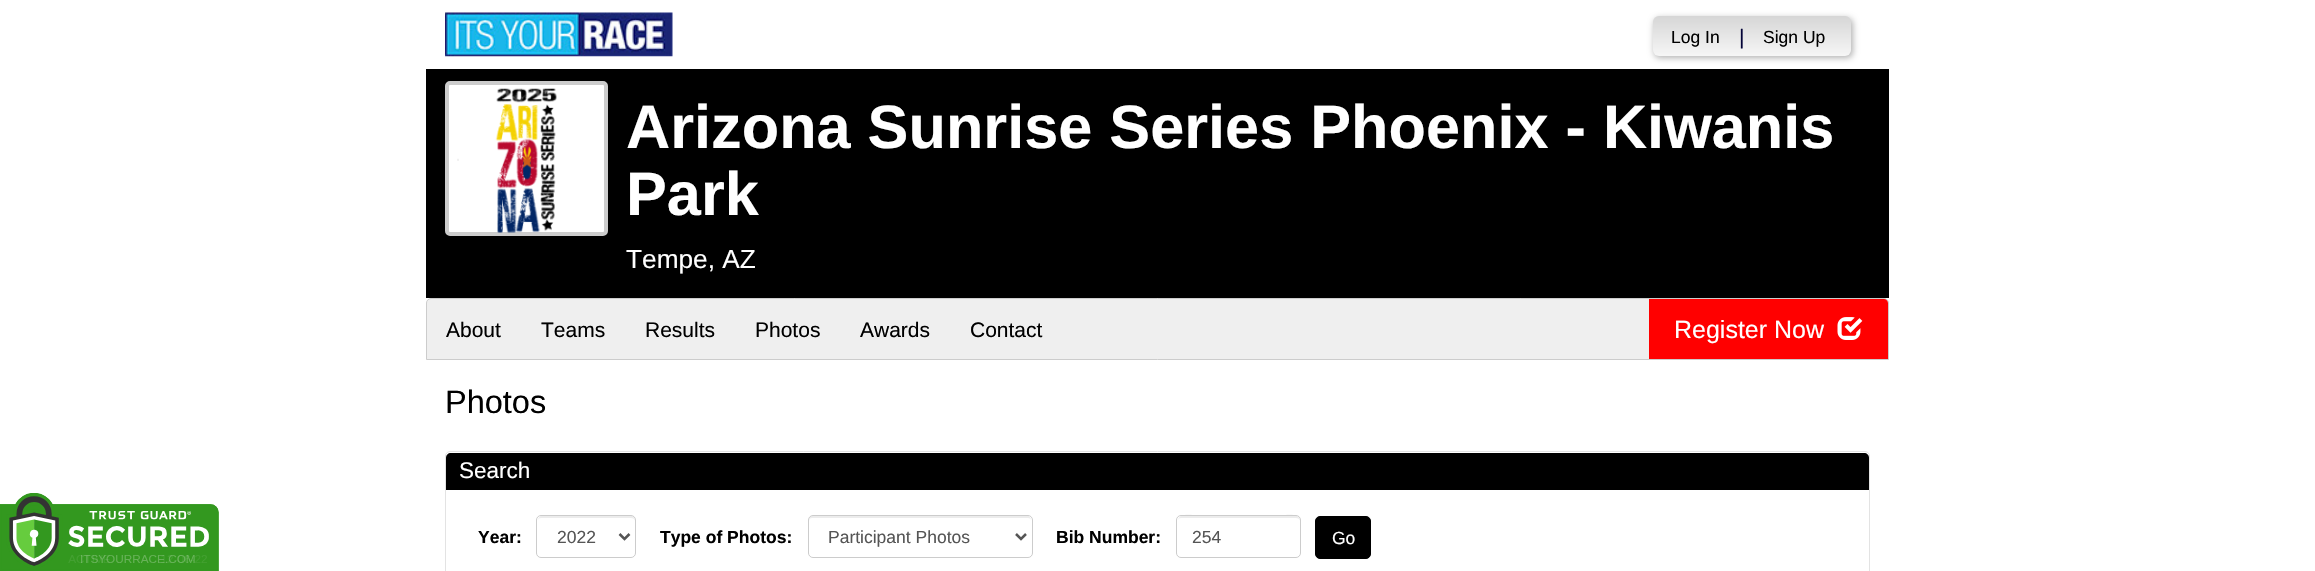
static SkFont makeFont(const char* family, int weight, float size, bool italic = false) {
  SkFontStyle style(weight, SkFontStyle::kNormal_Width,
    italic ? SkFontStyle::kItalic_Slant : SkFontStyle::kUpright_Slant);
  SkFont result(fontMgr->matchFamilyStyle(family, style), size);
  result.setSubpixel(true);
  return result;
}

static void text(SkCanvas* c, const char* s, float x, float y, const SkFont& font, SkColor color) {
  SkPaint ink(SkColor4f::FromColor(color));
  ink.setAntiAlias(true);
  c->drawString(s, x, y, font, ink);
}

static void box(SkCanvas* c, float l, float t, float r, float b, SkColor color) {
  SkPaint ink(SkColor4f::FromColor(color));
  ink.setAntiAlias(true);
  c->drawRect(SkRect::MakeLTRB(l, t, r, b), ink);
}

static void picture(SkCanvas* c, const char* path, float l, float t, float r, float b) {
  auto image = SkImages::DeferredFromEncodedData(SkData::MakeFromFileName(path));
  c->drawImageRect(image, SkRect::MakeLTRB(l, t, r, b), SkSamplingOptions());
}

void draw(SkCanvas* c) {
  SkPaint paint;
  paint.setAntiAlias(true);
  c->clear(0xffffffff);
  picture(c, "img_01.png", 0, 493, 219, 571);
  picture(c, "img_02.png", 445, 12, 673, 57);
  paint.setColor(0x4d000000);
  paint.setMaskFilter(SkMaskFilter::MakeBlur(kNormal_SkBlurStyle, 3));
  c->drawRoundRect(SkRect::MakeLTRB(1654, 18, 1853, 58), 6, 6, paint);
  paint.setMaskFilter(nullptr);
  {
    const SkColor colors[] = {0xffd6d6d6, 0xfff6f6f6};
    const float stops[] = {0, 1};
    const SkPoint ends[] = {{1752, 16}, {1752, 56}};
    paint.setShader(SkGradientShader::MakeLinear(ends, colors, stops, 2, SkTileMode::kClamp));
    paint.setAlpha(255);
  }
  c->drawRoundRect(SkRect::MakeLTRB(1653, 16, 1851, 56), 6, 6, paint);
  SkFont face1 = makeFont("Liberation Sans", 400, 17.5f);
  text(c, "Log In", 1671, 43, face1, 0xff000000);
  SkFont face2 = makeFont("Liberation Sans", 400, 21);
  text(c, "|", 1739, 44, face2, 0xff040438);
  text(c, "Sign Up", 1763, 43, face1, 0xff000000);
  box(c, 426, 69, 1889, 298, 0xff000000);
  paint.setShader(nullptr);
  paint.setColor(0xffffffff);
  c->drawRoundRect(SkRect::MakeLTRB(447, 83, 606, 234), 3, 3, paint);
  paint.setStyle(SkPaint::kStroke_Style);
  paint.setStrokeWidth(4);
  paint.setColor(0xffcccccc);
  c->drawRoundRect(SkRect::MakeLTRB(447, 83, 606, 234), 3, 3, paint);
  picture(c, "img_03.png", 457, 88, 557, 233);
  SkFont face3 = makeFont("Liberation Sans", 700, 61.25f);
  text(c, "Arizona Sunrise Series Phoenix - Kiwanis", 626, 148, face3, 0xffffffff);
  text(c, "Park", 626, 215, face3, 0xffffffff);
  SkFont face4 = makeFont("Liberation Sans", 400, 26.25f);
  text(c, "Tempe, AZ", 626, 268, face4, 0xffffffff);
  paint.setStyle(SkPaint::kFill_Style);
  paint.setColor(0xffefefef);
  c->drawPath(SkPathBuilder().moveTo(431, 298.5f).lineTo(1884, 298.5f).cubicTo(1886.5f, 298.5f, 1888.5f, 300.5f, 1888.5f, 303).lineTo(1888.5f, 359.5f).lineTo(426.5f, 359.5f).lineTo(426.5f, 303).cubicTo(426.5f, 300.5f, 428.5f, 298.5f, 431, 298.5f).close().detach(), paint);
  paint.setStyle(SkPaint::kStroke_Style);
  paint.setStrokeWidth(1);
  paint.setColor(0xffcccccc);
  c->drawPath(SkPathBuilder().moveTo(431, 298.5f).lineTo(1884, 298.5f).cubicTo(1886.5f, 298.5f, 1888.5f, 300.5f, 1888.5f, 303).lineTo(1888.5f, 359.5f).lineTo(426.5f, 359.5f).lineTo(426.5f, 303).cubicTo(426.5f, 300.5f, 428.5f, 298.5f, 431, 298.5f).close().detach(), paint);
  text(c, "About", 446, 337, face2, 0xff000000);
  text(c, "Teams", 541, 337, face2, 0xff000000);
  text(c, "Results", 645, 337, face2, 0xff000000);
  text(c, "Photos", 755, 337, face2, 0xff000000);
  text(c, "Awards", 860, 337, face2, 0xff000000);
  text(c, "Contact", 970, 337, face2, 0xff000000);
  paint.setStyle(SkPaint::kFill_Style);
  paint.setColor(0xffff0000);
  c->drawPath(SkPathBuilder().moveTo(1649, 299).lineTo(1884, 299).cubicTo(1886, 299, 1888, 301, 1888, 303).lineTo(1888, 359).lineTo(1649, 359).close().detach(), paint);
  SkFont face5 = makeFont("Liberation Sans", 400, 25);
  text(c, "Register Now", 1674, 338, face5, 0xffffffff);
  picture(c, "img_04.png", 1837, 317, 1863, 340);
  SkFont face6 = makeFont("Liberation Sans", 400, 32.5f);
  text(c, "Photos", 445, 413, face6, 0xff000000);
  paint.setColor(0xfff2f2f2);
  c->drawPath(SkPathBuilder().moveTo(450, 454).lineTo(1865, 454).cubicTo(1867, 454, 1869, 455, 1869, 458).lineTo(1869, 457).cubicTo(1869, 455, 1867, 453, 1865, 453).lineTo(450, 453).cubicTo(448, 453, 446, 455, 446, 457).lineTo(446, 458).cubicTo(446, 455, 448, 454, 450, 454).close().detach(), paint);
  paint.setStyle(SkPaint::kStroke_Style);
  paint.setColor(0xffe3e3e3);
  c->drawRoundRect(SkRect::MakeLTRB(445.5f, 451.5f, 1869.5f, 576.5f), 4.5f, 4.5f, paint);
  paint.setStyle(SkPaint::kFill_Style);
  paint.setColor(0xff000000);
  c->drawPath(SkPathBuilder().moveTo(451, 453).lineTo(1864, 453).cubicTo(1867, 453, 1869, 455, 1869, 458).lineTo(1869, 490).lineTo(446, 490).lineTo(446, 458).cubicTo(446, 455, 448, 453, 451, 453).close().detach(), paint);
  SkFont face7 = makeFont("Liberation Sans", 400, 22.5f);
  text(c, "Search", 459, 478, face7, 0xffffffff);
  SkFont face8 = makeFont("Liberation Sans", 700, 17.5f);
  text(c, "Year:", 478, 543, face8, 0xff000000);
  paint.setColor(0xffececec);
  c->drawPath(SkPathBuilder().moveTo(541, 518).lineTo(631, 518).cubicTo(633, 518, 635, 519, 635, 521).cubicTo(635, 512, 621, 516, 616, 516).lineTo(557, 516).cubicTo(552, 516, 538, 512, 538, 521).cubicTo(538, 519, 539, 518, 541, 518).close().detach(), paint);
  paint.setStyle(SkPaint::kStroke_Style);
  paint.setColor(0xffcccccc);
  c->drawRoundRect(SkRect::MakeLTRB(536.5f, 515.5f, 635.5f, 557.5f), 4.5f, 4.5f, paint);
  paint.setStrokeWidth(2.5f);
  paint.setColor(0xff555555);
  c->drawPath(SkPathBuilder().moveTo(619.5f, 534).lineTo(624.5f, 539).lineTo(629.5f, 534).detach(), paint);
  text(c, "2022", 557, 543, face1, 0xff555555);
  text(c, "Type of Photos:", 660, 543, face8, 0xff000000);
  paint.setStyle(SkPaint::kFill_Style);
  paint.setColor(0xffececec);
  c->drawPath(SkPathBuilder().moveTo(812, 518).lineTo(1028, 518).cubicTo(1030, 518, 1031, 519, 1031, 521).cubicTo(1031, 518, 1030, 516, 1027, 516).lineTo(813, 516).cubicTo(810, 516, 809, 518, 809, 521).cubicTo(809, 519, 810, 518, 812, 518).close().detach(), paint);
  paint.setStyle(SkPaint::kStroke_Style);
  paint.setStrokeWidth(1);
  paint.setColor(0xffcccccc);
  c->drawRoundRect(SkRect::MakeLTRB(808.5f, 515.5f, 1032.5f, 557.5f), 4.5f, 4.5f, paint);
  paint.setStrokeWidth(2.5f);
  paint.setColor(0xff555555);
  c->drawPath(SkPathBuilder().moveTo(1016, 534).lineTo(1021, 539).lineTo(1026, 534).detach(), paint);
  text(c, "Participant Photos", 828, 543, face1, 0xff555555);
  text(c, "Bib Number:", 1056, 543, face8, 0xff000000);
  paint.setStyle(SkPaint::kFill_Style);
  paint.setColor(0xffececec);
  c->drawPath(SkPathBuilder().moveTo(1181, 518).lineTo(1296, 518).cubicTo(1298, 518, 1300, 519, 1300, 521).cubicTo(1300, 511, 1280, 516, 1277, 516).lineTo(1201, 516).cubicTo(1198, 516, 1178, 511, 1178, 521).cubicTo(1178, 519, 1179, 518, 1181, 518).close().detach(), paint);
  paint.setStyle(SkPaint::kStroke_Style);
  paint.setStrokeWidth(1);
  paint.setColor(0xffcccccc);
  c->drawRoundRect(SkRect::MakeLTRB(1176.5f, 515.5f, 1300.5f, 557.5f), 4.5f, 4.5f, paint);
  text(c, "254", 1192, 543, face1, 0xff555555);
  paint.setStyle(SkPaint::kFill_Style);
  paint.setColor(0xff000000);
  c->drawRoundRect(SkRect::MakeLTRB(1315.5f, 516.5f, 1370.5f, 558.5f), 4.5f, 4.5f, paint);
  paint.setStyle(SkPaint::kStroke_Style);
  c->drawRoundRect(SkRect::MakeLTRB(1315.5f, 516.5f, 1370.5f, 558.5f), 4.5f, 4.5f, paint);
  text(c, "Go", 1332, 544, face1, 0xffffffff);
}
